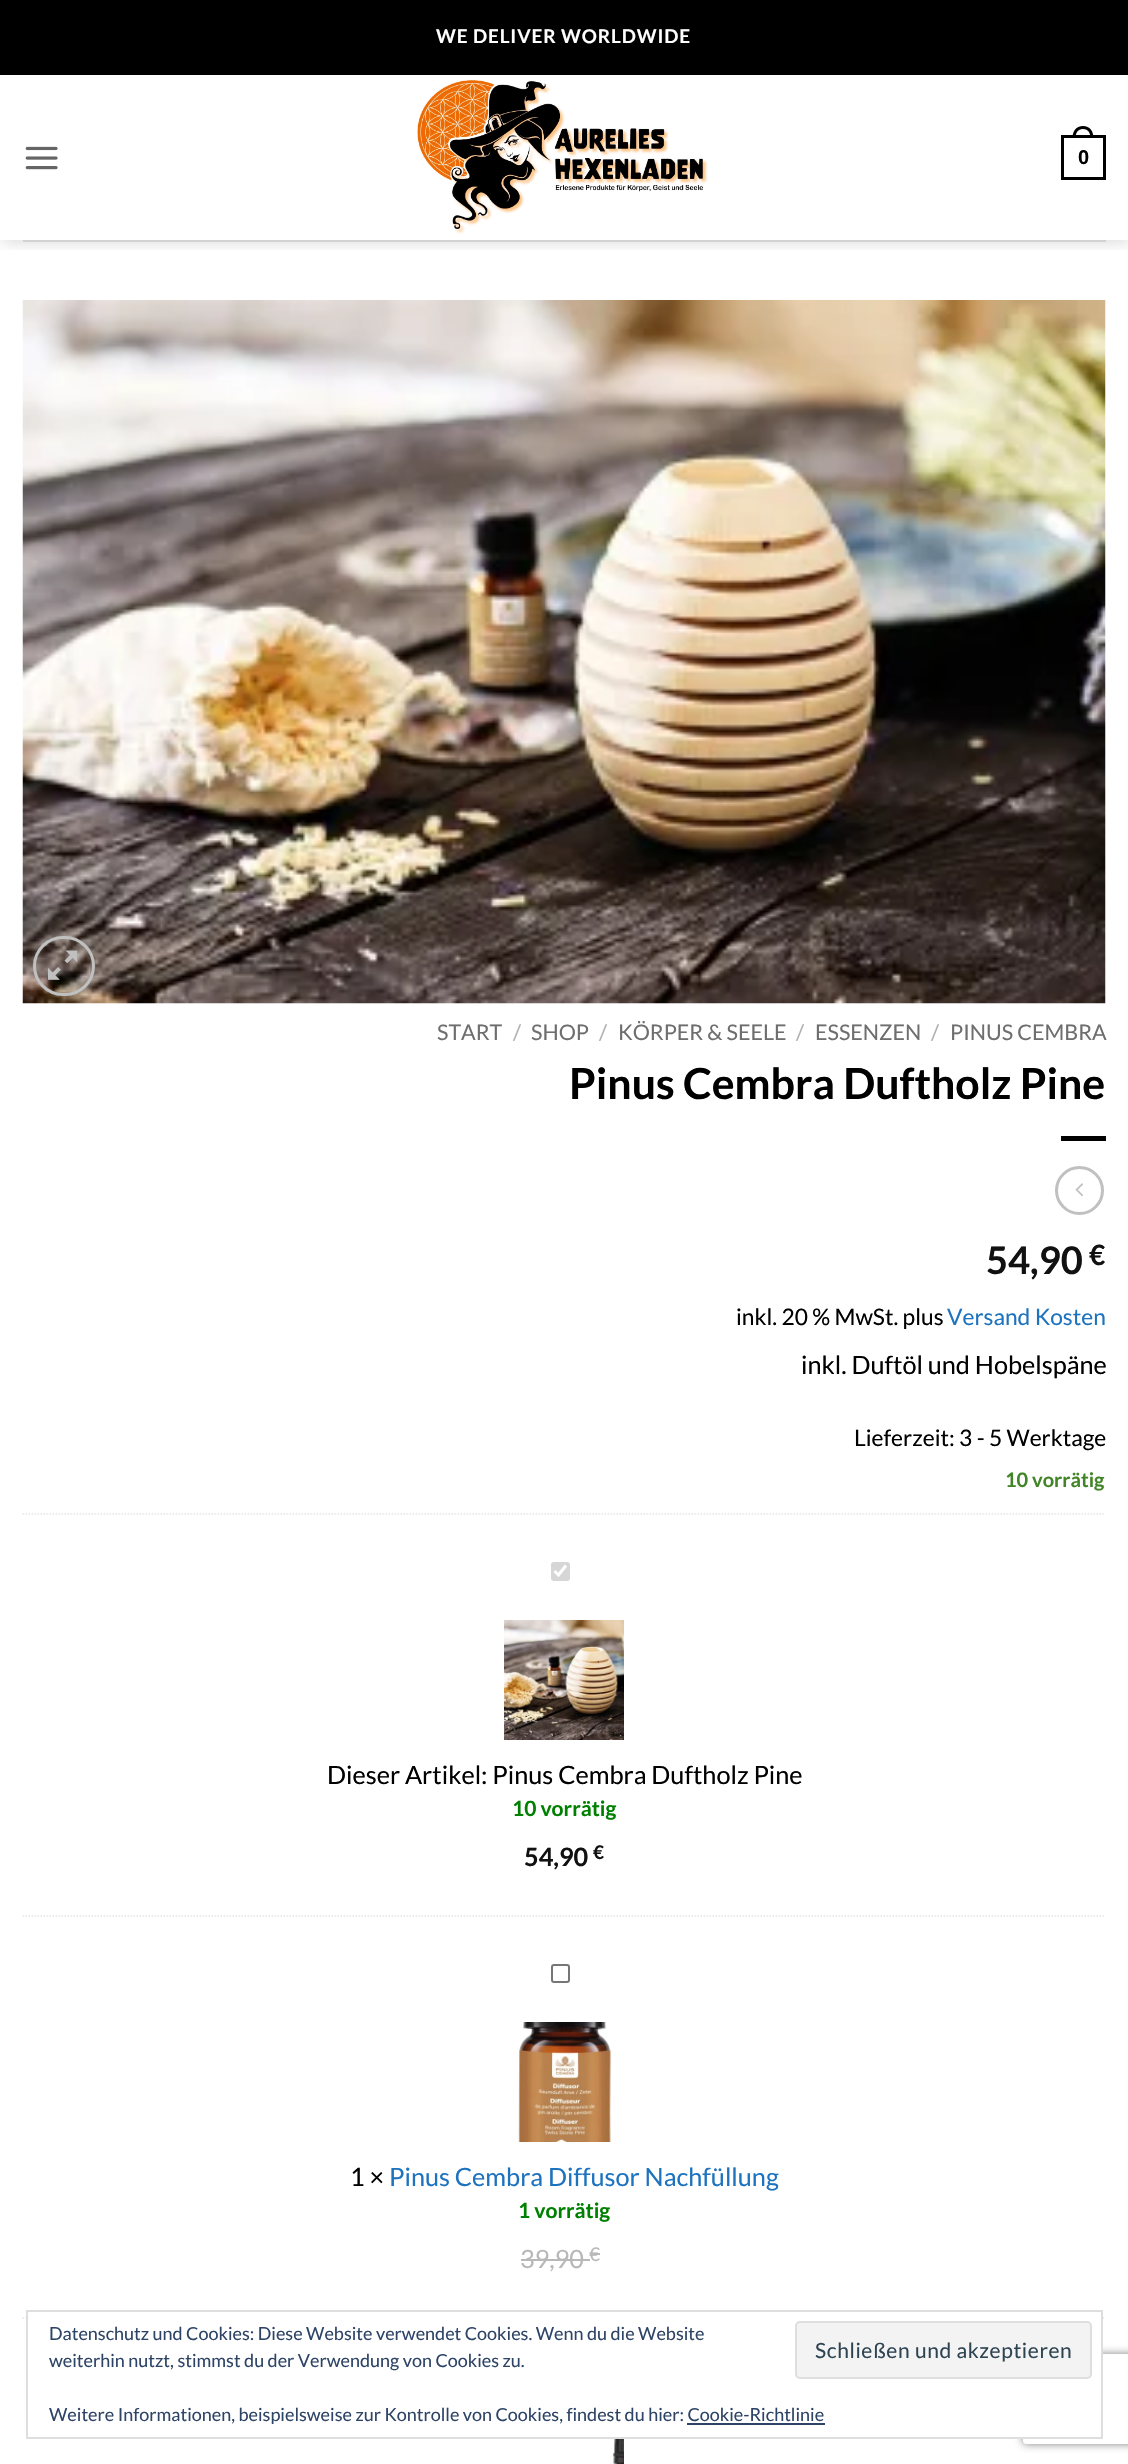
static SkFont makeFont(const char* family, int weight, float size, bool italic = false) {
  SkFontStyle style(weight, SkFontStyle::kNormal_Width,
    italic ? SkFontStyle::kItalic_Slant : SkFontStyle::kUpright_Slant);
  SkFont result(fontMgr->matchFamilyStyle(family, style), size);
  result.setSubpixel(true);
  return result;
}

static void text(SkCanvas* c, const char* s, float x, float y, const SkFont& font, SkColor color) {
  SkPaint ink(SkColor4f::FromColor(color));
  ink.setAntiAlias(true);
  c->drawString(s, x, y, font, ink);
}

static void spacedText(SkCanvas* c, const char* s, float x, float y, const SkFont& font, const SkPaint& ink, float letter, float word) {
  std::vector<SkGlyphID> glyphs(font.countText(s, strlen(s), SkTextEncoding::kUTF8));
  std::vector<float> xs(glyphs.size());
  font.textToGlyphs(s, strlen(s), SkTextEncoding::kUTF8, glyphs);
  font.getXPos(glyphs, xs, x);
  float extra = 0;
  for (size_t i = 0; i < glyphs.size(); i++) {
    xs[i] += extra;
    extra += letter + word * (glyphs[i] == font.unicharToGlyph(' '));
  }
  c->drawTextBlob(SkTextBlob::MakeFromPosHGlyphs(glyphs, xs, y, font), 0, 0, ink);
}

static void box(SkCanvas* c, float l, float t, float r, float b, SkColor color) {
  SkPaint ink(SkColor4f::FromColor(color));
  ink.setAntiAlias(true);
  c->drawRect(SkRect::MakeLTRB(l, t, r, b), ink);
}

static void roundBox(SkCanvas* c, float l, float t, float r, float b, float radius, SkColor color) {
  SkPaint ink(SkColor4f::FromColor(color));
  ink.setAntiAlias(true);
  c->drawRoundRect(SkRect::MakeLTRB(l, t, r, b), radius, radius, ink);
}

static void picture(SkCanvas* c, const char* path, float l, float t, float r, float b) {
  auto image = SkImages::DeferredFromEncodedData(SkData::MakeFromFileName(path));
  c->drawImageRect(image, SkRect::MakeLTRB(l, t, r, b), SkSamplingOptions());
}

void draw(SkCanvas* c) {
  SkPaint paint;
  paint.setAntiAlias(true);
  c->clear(0xffffffff);
  c->save();
  c->clipRect(SkRect::MakeLTRB(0, 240, 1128, 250));
  paint.setColor(0x26000000);
  paint.setMaskFilter(SkMaskFilter::MakeBlur(kNormal_SkBlurStyle, 7.5f));
  c->drawRect(SkRect::MakeLTRB(2, 2, 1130, 242), paint);
  paint.setMaskFilter(nullptr);
  c->restore();
  box(c, 0, 0, 1128, 75, 0xff000000);
  SkFont face1 = makeFont("Lato", 700, 18.9f);
  paint.setColor(0xffffffff);
  spacedText(c, "WE DELIVER WORLDWIDE", 436, 43, face1, paint, 0.9f, 0);
  picture(c, "img_01.png", 25, 146, 58, 170);
  picture(c, "img_02.png", 417, 79, 708, 234);
  paint.setStyle(SkPaint::kStroke_Style);
  paint.setStrokeWidth(3);
  paint.setColor(0xff000000);
  c->drawRect(SkRect::MakeLTRB(1062.5f, 136.5f, 1104.5f, 178.5f), paint);
  paint.setStyle(SkPaint::kFill_Style);
  c->drawPath(SkPathBuilder(SkPathFillType::kEvenOdd).moveTo(1083, 126).cubicTo(1090, 126, 1093.5f, 131.5f, 1093.5f, 138).lineTo(1072.5f, 138).cubicTo(1072.5f, 131.5f, 1076, 126, 1083, 126).close().moveTo(1083, 129).cubicTo(1088.5f, 129, 1090.5f, 133.5f, 1090.5f, 138).lineTo(1075.5f, 138).cubicTo(1075.5f, 133.5f, 1077.5f, 129, 1083, 129).close().detach(), paint);
  SkFont face2 = makeFont("Liberation Sans", 700, 20);
  text(c, "0", 1078, 164, face2, 0xff000000);
  box(c, 23, 240, 1106, 242, 0xffd2d2d2);
  picture(c, "img_03.png", 22, 300, 1106, 1004);
  paint.setStyle(SkPaint::kStroke_Style);
  paint.setColor(0xffc0c0c0);
  c->drawRoundRect(SkRect::MakeLTRB(34.5f, 937.5f, 93.5f, 994.5f), 28.5f, 28.5f, paint);
  picture(c, "img_04.png", 48, 950, 78, 980);
  SkFont face3 = makeFont("Lato", 400, 21.5f);
  text(c, "START", 437, 1040, face3, 0xff6e6e6e);
  text(c, "/", 513, 1040, face3, 0xffb2b2b2);
  text(c, "SHOP", 531, 1040, face3, 0xff6e6e6e);
  text(c, "/", 599, 1040, face3, 0xffb2b2b2);
  text(c, "KÖRPER & SEELE", 618, 1040, face3, 0xff6e6e6e);
  text(c, "/", 796, 1040, face3, 0xffb2b2b2);
  text(c, "ESSENZEN", 815, 1040, face3, 0xff6e6e6e);
  text(c, "/", 931, 1040, face3, 0xffb2b2b2);
  text(c, "PINUS CEMBRA", 950, 1040, face3, 0xff6e6e6e);
  SkFont face4 = makeFont("Lato", 700, 42.8f);
  text(c, "Pinus Cembra Duftholz Pine", 569, 1099, face4, 0xff000000);
  box(c, 1061, 1136, 1106, 1141, 0xff000000);
  c->drawCircle(1079.5f, 1190.5f, 23, paint);
  picture(c, "img_05.png", 1075, 1183, 1083, 1197);
  SkFont face5 = makeFont("Lato", 700, 38);
  text(c, "54,90", 986, 1274, face5, 0xff111111);
  SkFont face6 = makeFont("Lato", 700, 28);
  text(c, "€", 1089, 1265, face6, 0xff111111);
  SkFont face7 = makeFont("Lato", 400, 22.75f);
  text(c, "inkl. 20 % MwSt. plus", 736, 1325, face7, 0xff000000);
  text(c, "Versand Kosten", 947, 1325, face7, 0xff1e73be);
  SkFont face8 = makeFont("Lato", 400, 25.25f);
  text(c, "inkl. Duftöl und Hobelspäne", 801, 1374, face8, 0xff000000);
  text(c, "Lieferzeit: 3 - 5 Werktage", 854, 1446, face7, 0xff000000);
  SkFont face9 = makeFont("Lato", 700, 20);
  text(c, "10 vorrätig", 1005, 1487, face9, 0xff428527);
  paint.setStrokeWidth(1.5f);
  paint.setColor(0xffe5e5e5);
  paint.setPathEffect(SkDashPathEffect::Make({{1.5f, 1.5f}}, 0));
  c->drawPath(SkPathBuilder().moveTo(22.5f, 1514).lineTo(1105.5f, 1514).detach(), paint);
  paint.setPathEffect(nullptr);
  paint.setPathEffect(SkDashPathEffect::Make({{1.5f, 1.5f}}, 0));
  c->drawPath(SkPathBuilder().moveTo(22.5f, 1916).lineTo(1105.5f, 1916).detach(), paint);
  paint.setPathEffect(nullptr);
  roundBox(c, 551, 1562, 570, 1581, 3, 0xffd6d6d6);
  paint.setStrokeWidth(3.1f);
  paint.setColor(0xffffffff);
  c->drawPath(SkPathBuilder().moveTo(554.5f, 1571).lineTo(558.5f, 1575).lineTo(566, 1565.5f).detach(), paint);
  picture(c, "img_06.png", 504, 1620, 624, 1740);
  text(c, "Dieser Artikel: Pinus Cembra Duftholz Pine", 327, 1784, face8, 0xff000000);
  SkFont face10 = makeFont("Lato", 700, 21);
  text(c, "10 vorrätig", 512, 1816, face10, 0xff008000);
  SkFont face11 = makeFont("Lato", 700, 25.25f);
  text(c, "54,90", 524, 1866, face11, 0xff111111);
  text(c, "€", 593, 1859, face1, 0xff111111);
  paint.setStrokeWidth(1.5f);
  paint.setColor(0xffe5e5e5);
  paint.setPathEffect(SkDashPathEffect::Make({{1.5f, 1.5f}}, 0));
  c->drawPath(SkPathBuilder().moveTo(22.5f, 2318).lineTo(1105.5f, 2318).detach(), paint);
  paint.setPathEffect(nullptr);
  paint.setStrokeWidth(2);
  paint.setColor(0xff767676);
  c->drawRoundRect(SkRect::MakeLTRB(552, 1965, 569, 1982), 2, 2, paint);
  picture(c, "img_07.png", 517, 2022, 612, 2142);
  text(c, "1 ×", 350, 2186, face8, 0xff000000);
  text(c, "Pinus Cembra Diffusor Nachfüllung", 389, 2186, face8, 0xff1e73be);
  text(c, "1 vorrätig", 518, 2218, face10, 0xff008000);
  text(c, "39,90", 520, 2268, face8, 0xffb8b8b8);
  box(c, 521, 2259, 590, 2261, 0xffb8b8b8);
  SkFont face12 = makeFont("Lato", 400, 18.9f);
  text(c, "€", 589, 2261, face12, 0xffb8b8b8);
  box(c, 590, 2253, 600, 2255, 0xffb8b8b8);
  picture(c, "img_08.png", 610, 2439, 624, 2464);
  c->save();
  c->clipPath(SkPathBuilder(SkPathFillType::kEvenOdd).moveTo(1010, 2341).lineTo(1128, 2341).lineTo(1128, 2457).lineTo(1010, 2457).close().moveTo(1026, 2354).lineTo(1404, 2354).cubicTo(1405.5f, 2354, 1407, 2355.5f, 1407, 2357).lineTo(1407, 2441).cubicTo(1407, 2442.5f, 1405.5f, 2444, 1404, 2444).lineTo(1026, 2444).cubicTo(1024.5f, 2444, 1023, 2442.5f, 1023, 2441).lineTo(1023, 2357).cubicTo(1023, 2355.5f, 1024.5f, 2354, 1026, 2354).close().detach(), true);
  paint.setStyle(SkPaint::kFill_Style);
  paint.setColor(0xff808080);
  paint.setMaskFilter(SkMaskFilter::MakeBlur(kNormal_SkBlurStyle, 4));
  c->drawRoundRect(SkRect::MakeLTRB(1023, 2354, 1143, 2444), 3, 3, paint);
  paint.setMaskFilter(nullptr);
  c->restore();
  box(c, 28, 2317, 1101, 2437, 0xffffffff);
  paint.setStyle(SkPaint::kStroke_Style);
  paint.setColor(0xffdedede);
  c->drawRect(SkRect::MakeLTRB(27, 2311, 1102, 2438), paint);
  SkFont face13 = makeFont("Lato", 400, 18);
  text(c, "Datenschutz und Cookies: Diese Website verwendet Cookies. Wenn du die Website", 49, 2340, face13, 0xff2e4467);
  text(c, "weiterhin nutzt, stimmst du der Verwendung von Cookies zu.", 49, 2367, face13, 0xff2e4467);
  paint.setStyle(SkPaint::kFill_Style);
  paint.setColor(0xfff3f3f3);
  c->drawRoundRect(SkRect::MakeLTRB(796, 2322, 1091, 2378), 4, 4, paint);
  paint.setStyle(SkPaint::kStroke_Style);
  paint.setColor(0xffdedede);
  c->drawRoundRect(SkRect::MakeLTRB(796, 2322, 1091, 2378), 4, 4, paint);
  SkFont face14 = makeFont("Lato", 400, 21);
  paint.setStyle(SkPaint::kFill_Style);
  paint.setColor(0xff2e4453);
  spacedText(c, "Schließen und akzeptieren", 815, 2358, face14, paint, 0.6f, 0);
  text(c, "Weitere Informationen, beispielsweise zur Kontrolle von Cookies, findest du hier: Cookie-Richtlinie", 49, 2421, face13, 0xff2e4467);
  box(c, 687, 2423, 825, 2425, 0xff2e4467);
}
